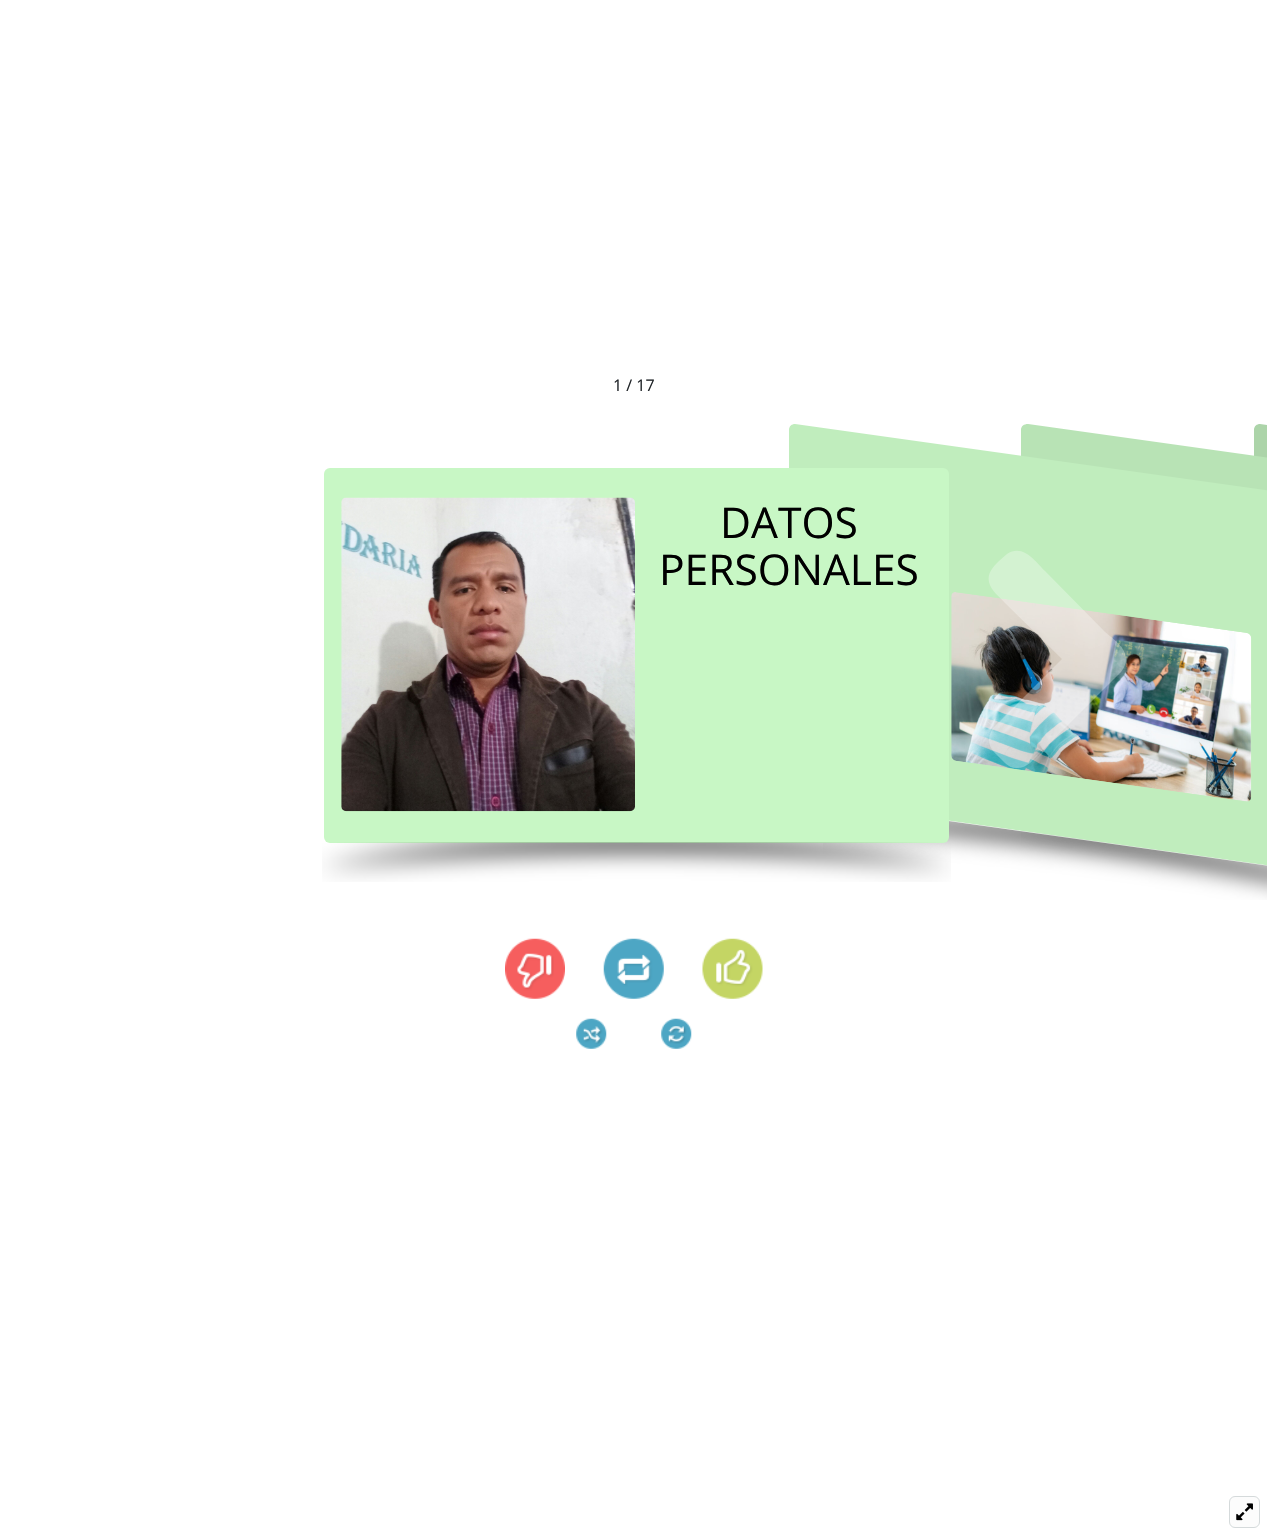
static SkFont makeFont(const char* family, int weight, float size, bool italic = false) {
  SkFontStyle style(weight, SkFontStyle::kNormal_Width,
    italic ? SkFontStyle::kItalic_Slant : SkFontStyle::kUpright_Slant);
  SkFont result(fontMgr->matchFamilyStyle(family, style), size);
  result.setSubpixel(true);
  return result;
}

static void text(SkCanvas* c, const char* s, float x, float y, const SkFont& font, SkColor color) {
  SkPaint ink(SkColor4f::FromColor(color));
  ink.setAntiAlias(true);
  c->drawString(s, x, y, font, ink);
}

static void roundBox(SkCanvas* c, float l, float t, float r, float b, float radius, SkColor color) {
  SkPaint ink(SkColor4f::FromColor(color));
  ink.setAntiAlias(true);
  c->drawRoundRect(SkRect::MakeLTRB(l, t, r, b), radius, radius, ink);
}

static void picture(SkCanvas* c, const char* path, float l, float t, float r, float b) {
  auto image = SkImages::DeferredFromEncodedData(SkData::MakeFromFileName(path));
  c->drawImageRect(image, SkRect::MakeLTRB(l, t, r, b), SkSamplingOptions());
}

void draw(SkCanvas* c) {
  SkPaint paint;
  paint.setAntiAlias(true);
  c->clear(0xffffffff);
  SkFont face1 = makeFont("Open Sans", 400, 16);
  text(c, "1 / 17", 613, 391, face1, 0xff212529);
  paint.setColor(0xffacd4a9);
  c->drawPath(SkPathBuilder().moveTo(1260, 424).lineTo(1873, 510).cubicTo(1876, 511, 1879, 514, 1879, 517).lineTo(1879, 880).cubicTo(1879, 883, 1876, 886, 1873, 885).lineTo(1260, 799).cubicTo(1257, 799, 1254, 796, 1254, 792).lineTo(1254, 430).cubicTo(1254, 426, 1257, 424, 1260, 424).close().detach(), paint);
  paint.setColor(0xffb8e3b5);
  c->drawPath(SkPathBuilder().moveTo(1028, 424).lineTo(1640, 510).cubicTo(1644, 511, 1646, 514, 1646, 517).lineTo(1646, 880).cubicTo(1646, 883, 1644, 886, 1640, 885).lineTo(1028, 799).cubicTo(1024, 799, 1021, 796, 1021, 792).lineTo(1021, 430).cubicTo(1021, 426, 1024, 424, 1028, 424).close().detach(), paint);
  picture(c, "img_03.png", 1021, 830, 1212, 858);
  paint.setColor(0xffc0edbd);
  c->drawPath(SkPathBuilder().moveTo(795, 424).lineTo(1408, 510).cubicTo(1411, 511, 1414, 514, 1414, 517).lineTo(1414, 880).cubicTo(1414, 883, 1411, 886, 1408, 885).lineTo(795, 799).cubicTo(792, 799, 789, 796, 789, 792).lineTo(789, 430).cubicTo(789, 426, 792, 424, 795, 424).close().detach(), paint);
  picture(c, "img_01.png", 951, 592, 1252, 802);
  picture(c, "img_02.png", 823, 821, 1267, 900);
  roundBox(c, 324, 468, 949, 843, 6, 0xffc8f7c5);
  picture(c, "img_04.png", 341, 497, 635, 812);
  SkFont face2 = makeFont("Open Sans", 400, 42.5f);
  text(c, "DATOS", 720, 538, face2, 0xff000000);
  text(c, "PERSONALES", 659, 585, face2, 0xff000000);
  picture(c, "img_05.png", 322, 842, 951, 882);
  paint.setColor(0x4dffffff);
  c->drawPath(SkPathBuilder().moveTo(1126, 659).cubicTo(1126, 664, 1124, 668, 1121, 672).lineTo(1030, 763).cubicTo(1026, 766, 1022, 768, 1017, 768).cubicTo(1012, 768, 1008, 766, 1005, 763).lineTo(994, 752).cubicTo(991, 749, 989, 744, 989, 740).cubicTo(989, 735, 991, 731, 994, 727).lineTo(1062, 659).lineTo(1005, 603).cubicTo(1000, 597, 991, 591, 989, 582).cubicTo(987, 573, 993, 567, 999, 561).lineTo(1007, 554).cubicTo(1023, 543, 1036, 562, 1045, 571).lineTo(1105, 632).cubicTo(1113, 639, 1126, 647, 1126, 659).close().detach(), paint);
  picture(c, "img_06.png", 505, 938, 565, 999);
  picture(c, "img_07.png", 603, 938, 664, 999);
  picture(c, "img_08.png", 702, 938, 763, 999);
  picture(c, "img_09.png", 576, 1018, 607, 1049);
  picture(c, "img_10.png", 661, 1018, 692, 1049);
  paint.setColor(0xfffcfcfc);
  c->drawRoundRect(SkRect::MakeLTRB(1229.5f, 1496.5f, 1259.5f, 1527.5f), 5.5f, 5.5f, paint);
  paint.setStyle(SkPaint::kStroke_Style);
  paint.setStrokeWidth(1);
  paint.setColor(0xffd5dadb);
  c->drawRoundRect(SkRect::MakeLTRB(1229.5f, 1496.5f, 1259.5f, 1527.5f), 5.5f, 5.5f, paint);
  picture(c, "img_11.png", 1236, 1503, 1253, 1521);
}
